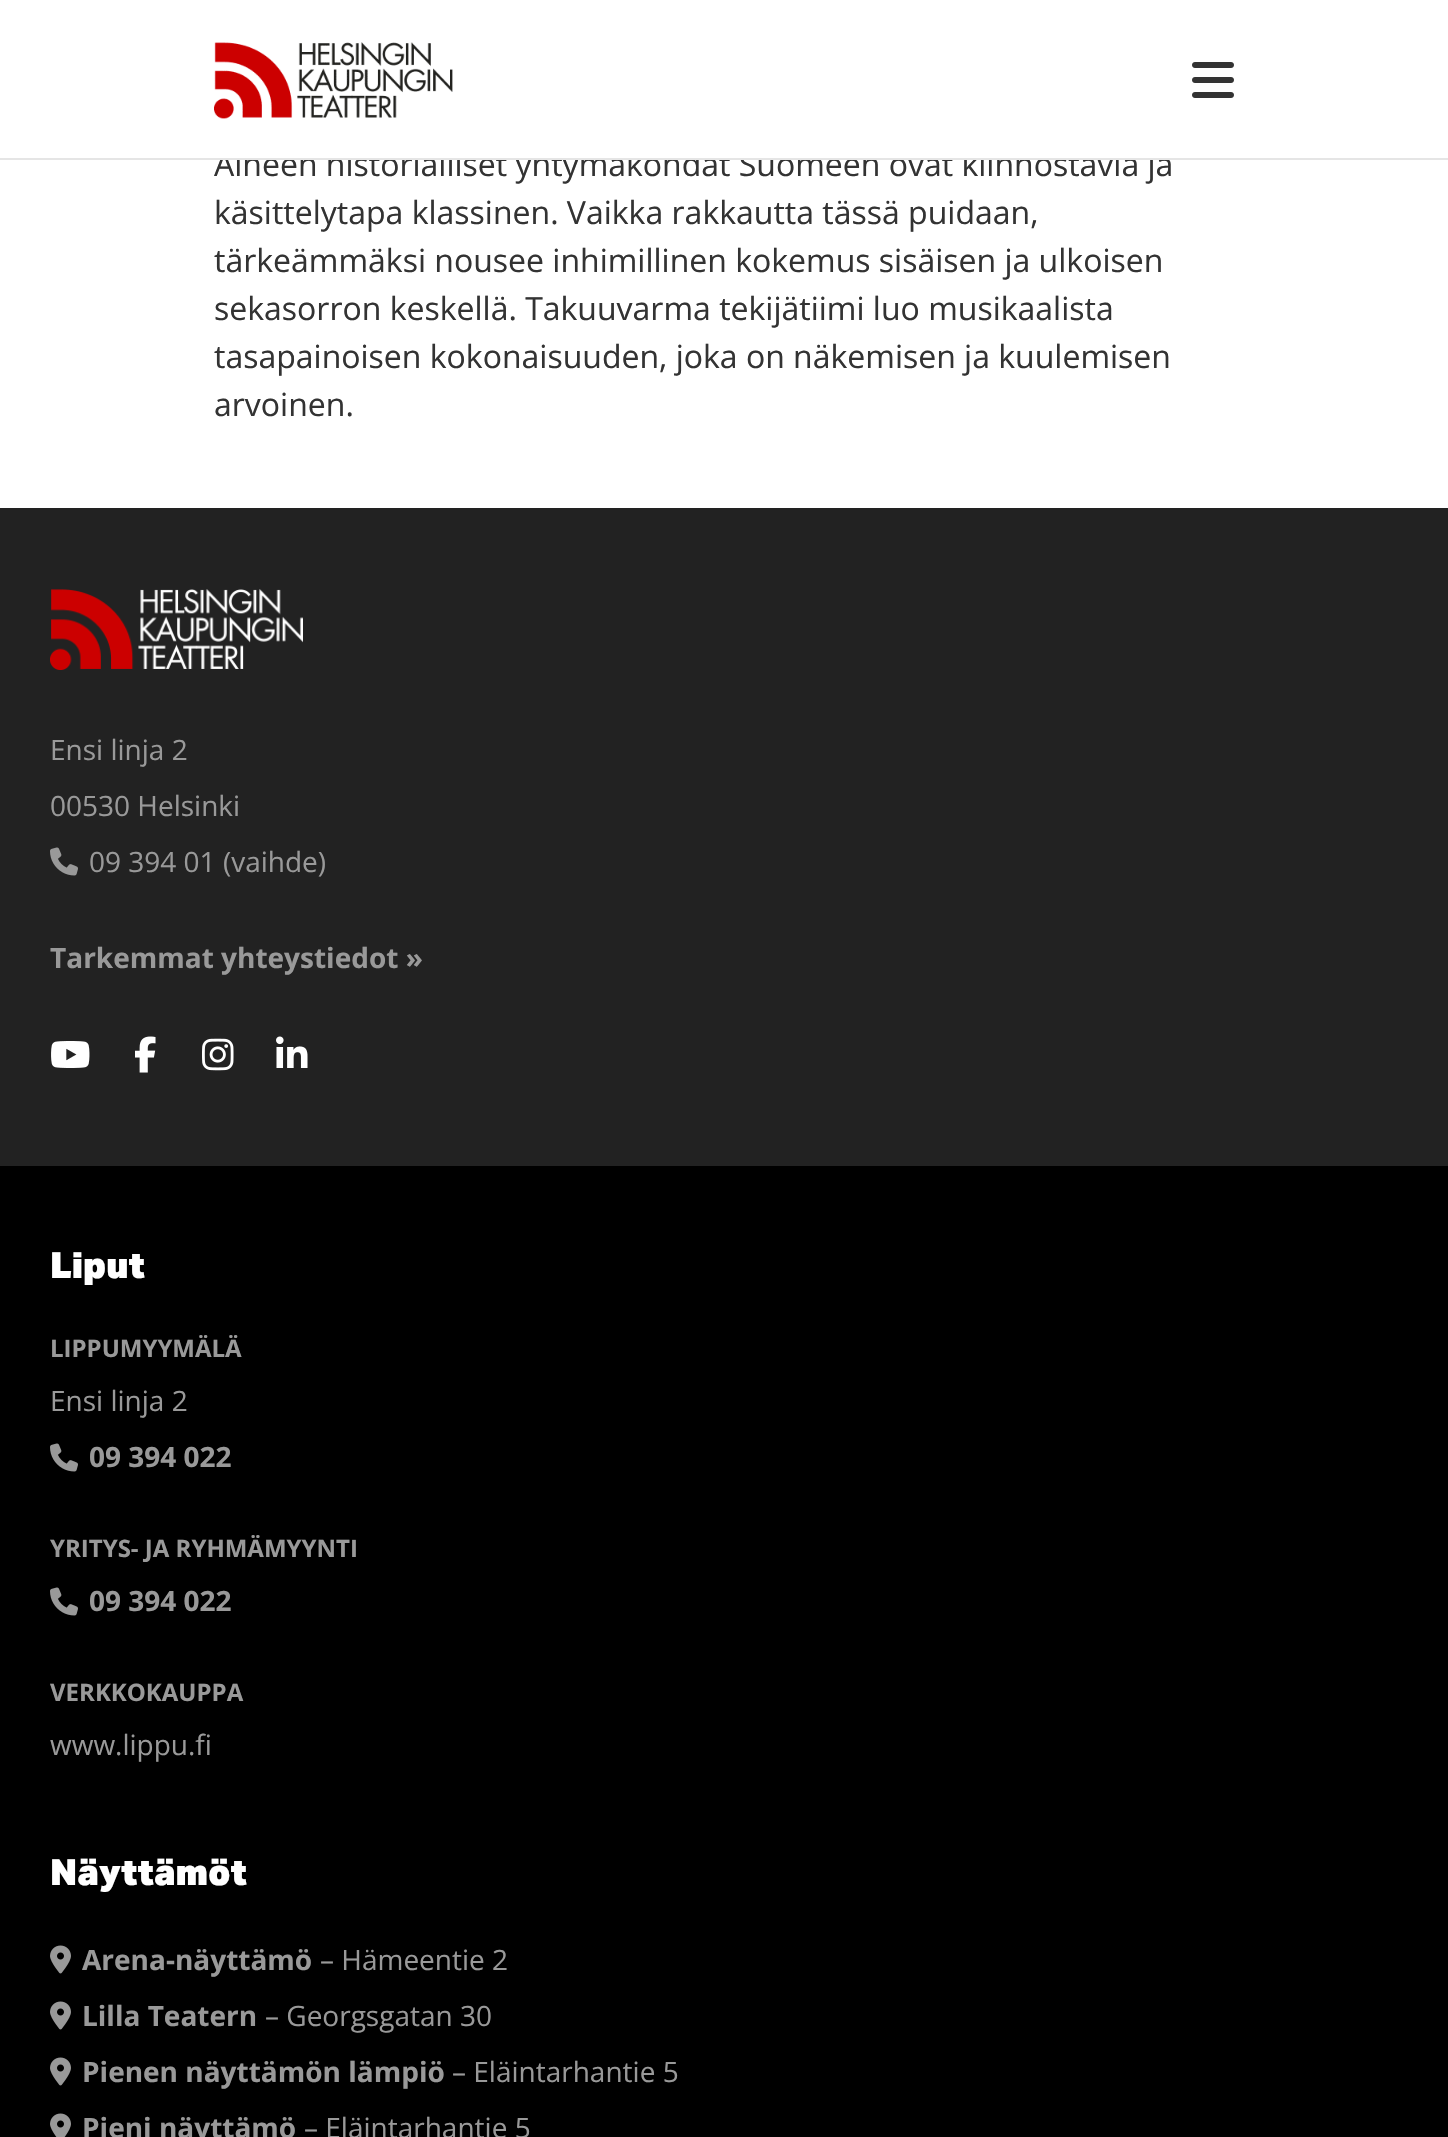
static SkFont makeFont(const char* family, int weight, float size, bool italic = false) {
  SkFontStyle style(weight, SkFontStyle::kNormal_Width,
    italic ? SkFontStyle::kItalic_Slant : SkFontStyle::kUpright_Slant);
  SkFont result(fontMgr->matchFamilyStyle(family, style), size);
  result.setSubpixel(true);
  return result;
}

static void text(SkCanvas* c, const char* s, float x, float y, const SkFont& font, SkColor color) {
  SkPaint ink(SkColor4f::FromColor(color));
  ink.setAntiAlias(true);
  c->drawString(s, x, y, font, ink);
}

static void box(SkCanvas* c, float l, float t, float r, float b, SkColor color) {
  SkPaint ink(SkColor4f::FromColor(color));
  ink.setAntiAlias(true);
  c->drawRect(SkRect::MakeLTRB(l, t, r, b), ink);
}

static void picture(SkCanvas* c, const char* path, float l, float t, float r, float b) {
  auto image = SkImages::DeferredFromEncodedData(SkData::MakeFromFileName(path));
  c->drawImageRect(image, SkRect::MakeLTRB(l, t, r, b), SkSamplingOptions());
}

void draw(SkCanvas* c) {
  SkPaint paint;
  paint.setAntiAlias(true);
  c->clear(0xffffffff);
  SkFont face1 = makeFont("Open Sans", 400, 32);
  text(c, "Aiheen historialliset yhtymäkohdat Suomeen ovat kiinnostavia ja", 214, 176, face1, 0xff333333);
  box(c, 221, 151, 1154, 158, 0xffffffff);
  box(c, 0, 158, 1448, 160, 0xffe5e5e5);
  picture(c, "img_01.png", 214, 42, 453, 119);
  picture(c, "img_02.png", 1192, 62, 1234, 98);
  text(c, "käsittelytapa klassinen. Vaikka rakkautta tässä puidaan,", 214, 224, face1, 0xff333333);
  text(c, "tärkeämmäksi nousee inhimillinen kokemus sisäisen ja ulkoisen", 214, 272, face1, 0xff333333);
  text(c, "sekasorron keskellä. Takuuvarma tekijätiimi luo musikaalista", 214, 320, face1, 0xff333333);
  text(c, "tasapainoisen kokonaisuuden, joka on näkemisen ja kuulemisen", 214, 368, face1, 0xff333333);
  text(c, "arvoinen.", 214, 416, face1, 0xff333333);
  box(c, 0, 1166, 1448, 2137, 0xff000000);
  box(c, 0, 508, 1448, 1166, 0xff222222);
  picture(c, "img_03.png", 50, 589, 303, 670);
  SkFont face2 = makeFont("Open Sans", 400, 28);
  text(c, "Ensi linja 2", 50, 760, face2, 0xff999999);
  text(c, "00530 Helsinki", 50, 816, face2, 0xff999999);
  picture(c, "img_04.png", 50, 847, 78, 876);
  text(c, "09 394 01 (vaihde)", 89, 872, face2, 0xff999999);
  SkFont face3 = makeFont("Open Sans", 700, 28);
  text(c, "Tarkemmat yhteystiedot »", 50, 968, face3, 0xff999999);
  picture(c, "img_05.png", 51, 1041, 90, 1068);
  picture(c, "img_06.png", 135, 1036, 156, 1073);
  picture(c, "img_07.png", 202, 1038, 234, 1071);
  picture(c, "img_08.png", 276, 1036, 308, 1068);
  SkFont face4 = makeFont("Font", 900, 36);
  text(c, "Liput", 50, 1278, face4, 0xffffffff);
  SkFont face5 = makeFont("Open Sans", 700, 24);
  text(c, "LIPPUMYYMÄLÄ", 50, 1357, face5, 0xff999999);
  text(c, "Ensi linja 2", 50, 1411, face2, 0xff999999);
  picture(c, "img_09.png", 50, 1443, 78, 1472);
  text(c, "09 394 022", 89, 1467, face3, 0xff999999);
  text(c, "YRITYS- JA RYHMÄMYYNTI", 50, 1557, face5, 0xff999999);
  picture(c, "img_09.png", 50, 1587, 78, 1616);
  text(c, "09 394 022", 89, 1611, face3, 0xff999999);
  text(c, "VERKKOKAUPPA", 50, 1701, face5, 0xff999999);
  text(c, "www.lippu.fi", 50, 1755, face2, 0xff999999);
  text(c, "Näyttämöt", 50, 1885, face4, 0xffffffff);
  picture(c, "img_10.png", 50, 1945, 71, 1974);
  text(c, "Arena-näyttämö", 82, 1970, face3, 0xff999999);
  text(c, "– Hämeentie 2", 320, 1970, face2, 0xff999999);
  picture(c, "img_10.png", 50, 2001, 71, 2030);
  text(c, "Lilla Teatern", 82, 2026, face3, 0xff999999);
  text(c, "– Georgsgatan 30", 265, 2026, face2, 0xff999999);
  picture(c, "img_10.png", 50, 2057, 71, 2086);
  text(c, "Pienen näyttämön lämpiö", 82, 2082, face3, 0xff999999);
  text(c, "– Eläintarhantie 5", 452, 2082, face2, 0xff999999);
  picture(c, "img_11.png", 50, 2113, 71, 2137);
  text(c, "Pieni näyttämö", 82, 2138, face3, 0xff999999);
  text(c, "– Eläintarhantie 5", 304, 2138, face2, 0xff999999);
}
